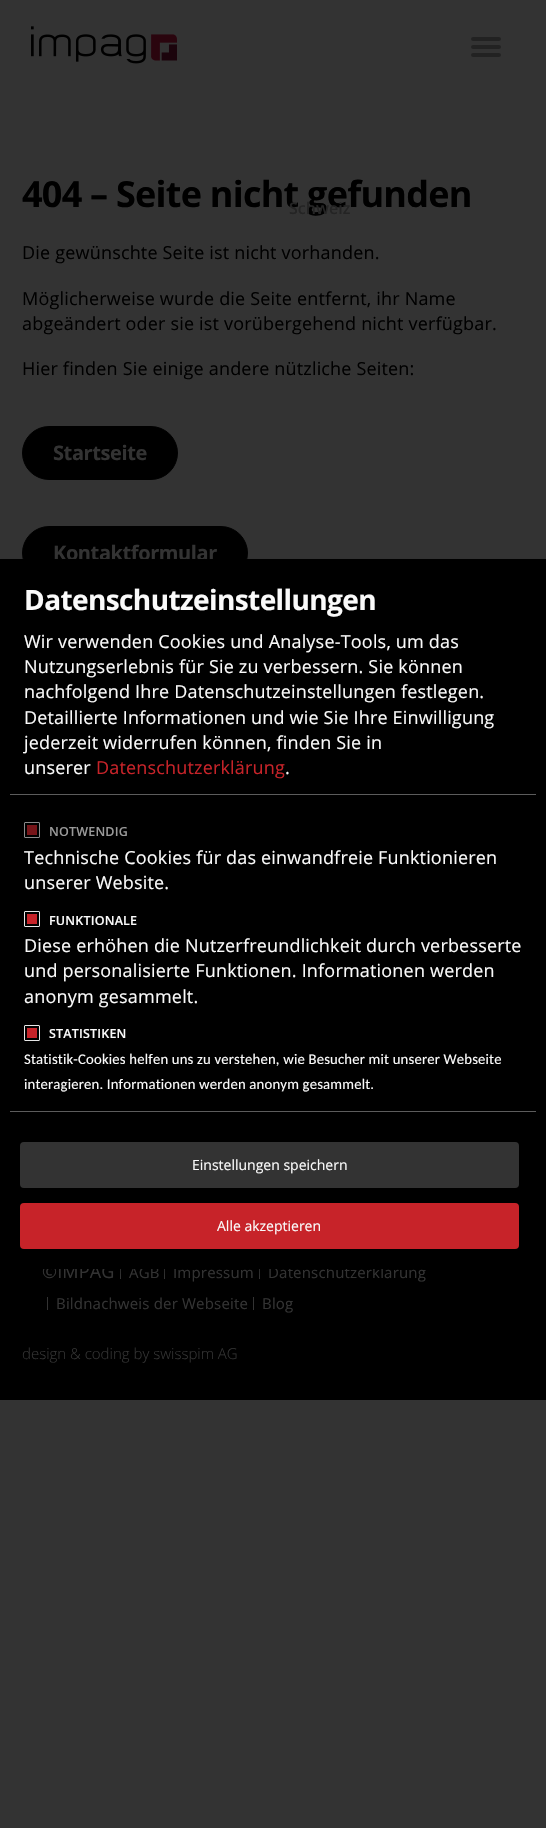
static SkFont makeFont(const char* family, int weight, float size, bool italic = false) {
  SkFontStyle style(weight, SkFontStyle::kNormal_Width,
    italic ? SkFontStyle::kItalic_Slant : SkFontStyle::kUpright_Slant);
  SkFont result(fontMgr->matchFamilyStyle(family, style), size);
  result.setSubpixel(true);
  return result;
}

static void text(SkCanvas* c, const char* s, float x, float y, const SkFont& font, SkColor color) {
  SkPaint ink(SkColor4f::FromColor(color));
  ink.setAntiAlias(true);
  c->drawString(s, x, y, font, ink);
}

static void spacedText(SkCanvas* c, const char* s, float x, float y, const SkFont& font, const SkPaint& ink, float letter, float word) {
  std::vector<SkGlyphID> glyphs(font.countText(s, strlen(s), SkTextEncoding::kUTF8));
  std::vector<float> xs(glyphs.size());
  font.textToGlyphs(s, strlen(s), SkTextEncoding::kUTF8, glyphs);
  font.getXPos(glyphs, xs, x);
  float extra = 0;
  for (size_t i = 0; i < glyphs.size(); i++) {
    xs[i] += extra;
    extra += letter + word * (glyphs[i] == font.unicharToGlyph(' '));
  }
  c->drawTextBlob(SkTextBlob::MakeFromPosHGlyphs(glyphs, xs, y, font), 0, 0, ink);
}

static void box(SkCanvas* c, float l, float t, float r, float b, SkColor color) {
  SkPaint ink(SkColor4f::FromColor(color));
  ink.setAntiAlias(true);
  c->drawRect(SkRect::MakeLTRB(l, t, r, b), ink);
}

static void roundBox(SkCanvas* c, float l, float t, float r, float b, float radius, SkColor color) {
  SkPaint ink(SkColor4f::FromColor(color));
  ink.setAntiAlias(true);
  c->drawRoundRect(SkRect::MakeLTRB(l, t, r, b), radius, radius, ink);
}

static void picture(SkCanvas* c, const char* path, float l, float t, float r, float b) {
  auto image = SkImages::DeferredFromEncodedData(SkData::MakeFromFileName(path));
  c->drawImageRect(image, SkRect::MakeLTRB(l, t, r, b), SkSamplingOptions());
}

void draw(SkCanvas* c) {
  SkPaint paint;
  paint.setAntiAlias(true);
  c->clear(0xff333333);
  SkFont face1 = makeFont("Open Sans", 700, 36);
  paint.setColor(0xff000000);
  spacedText(c, "404 – Seite nicht gefunden", 22, 207, face1, paint, -0.75f, 0);
  SkFont face2 = makeFont("Open Sans", 400, 18);
  spacedText(c, "Die gewünschte Seite ist nicht vorhanden.", 22, 259, face2, paint, 0.18f, 0);
  spacedText(c, "Möglicherweise wurde die Seite entfernt, ihr Name", 22, 305, face2, paint, 0.18f, 0);
  spacedText(c, "abgeändert oder sie ist vorübergehend nicht verfügbar.", 22, 330, face2, paint, 0.18f, 0);
  spacedText(c, "Hier finden Sie einige andere nützliche Seiten:", 22, 375, face2, paint, 0.18f, 0);
  c->drawRoundRect(SkRect::MakeLTRB(22.5f, 426.5f, 177.5f, 479.5f), 26.5f, 26.5f, paint);
  paint.setStyle(SkPaint::kStroke_Style);
  paint.setStrokeWidth(1);
  c->drawRoundRect(SkRect::MakeLTRB(22.5f, 426.5f, 177.5f, 479.5f), 26.5f, 26.5f, paint);
  SkFont face3 = makeFont("Open Sans", 700, 20);
  paint.setStyle(SkPaint::kFill_Style);
  paint.setColor(0xff333333);
  spacedText(c, "Startseite", 53, 460, face3, paint, -0.4f, 0);
  paint.setColor(0xff000000);
  c->drawRoundRect(SkRect::MakeLTRB(22.5f, 526.5f, 247.5f, 579.5f), 26.5f, 26.5f, paint);
  paint.setStyle(SkPaint::kStroke_Style);
  c->drawRoundRect(SkRect::MakeLTRB(22.5f, 526.5f, 247.5f, 579.5f), 26.5f, 26.5f, paint);
  paint.setStyle(SkPaint::kFill_Style);
  paint.setColor(0xff333333);
  spacedText(c, "Kontaktformular", 53, 560, face3, paint, -0.4f, 0);
  picture(c, "img_01.png", 31, 26, 177, 64);
  roundBox(c, 471, 37, 501, 41, 2, 0xff222222);
  roundBox(c, 471, 45, 501, 49, 2, 0xff222222);
  roundBox(c, 471, 53, 501, 57, 2, 0xff222222);
  SkFont face4 = makeFont("Open Sans", 600, 16);
  text(c, "Schweiz", 289, 214, face4, 0xff242424);
  box(c, 0, 1269, 546, 1400, 0xff000000);
  box(c, 120, 1266, 121, 1279, 0xff333333);
  box(c, 164, 1266, 165, 1279, 0xff333333);
  box(c, 259, 1266, 260, 1279, 0xff333333);
  paint.setColor(0x33000000);
  paint.setMaskFilter(SkMaskFilter::MakeBlur(kNormal_SkBlurStyle, 3));
  c->drawRect(SkRect::MakeLTRB(0, 563, 546, 1273), paint);
  paint.setMaskFilter(nullptr);
  paint.setColor(0xff333333);
  spacedText(c, "©IMPAG", 42, 1278, face2, paint, 0.18f, 0);
  SkFont face5 = makeFont("Open Sans", 400, 15);
  spacedText(c, "AGB", 129, 1278, face5, paint, 0.18f, 0);
  spacedText(c, "Impressum", 173, 1278, face5, paint, 0.18f, 0);
  spacedText(c, "Datenschutzerklärung", 268, 1278, face5, paint, 0.18f, 0);
  box(c, 0, 559, 546, 1269, 0xff000000);
  box(c, 10, 794, 536, 795, 0xff5c5c5c);
  SkFont face6 = makeFont("Open Sans", 700, 28);
  paint.setColor(0xfffafafa);
  spacedText(c, "Datenschutzeinstellungen", 24, 610, face6, paint, -0.6f, 0);
  spacedText(c, "Wir verwenden Cookies und Analyse-Tools, um das", 24, 648, face2, paint, 0.18f, 0);
  spacedText(c, "Nutzungserlebnis für Sie zu verbessern. Sie können", 24, 673, face2, paint, 0.18f, 0);
  spacedText(c, "nachfolgend Ihre Datenschutzeinstellungen festlegen.", 24, 698, face2, paint, 0.18f, 0);
  spacedText(c, "Detaillierte Informationen und wie Sie Ihre Einwilligung", 24, 724, face2, paint, 0.18f, 0);
  spacedText(c, "jederzeit widerrufen können, finden Sie in", 24, 749, face2, paint, 0.18f, 0);
  spacedText(c, "unserer", 24, 774, face2, paint, 0.18f, 0);
  paint.setColor(0xffc72329);
  spacedText(c, "Datenschutzerklärung", 96, 774, face2, paint, 0.18f, 0);
  paint.setColor(0xfffafafa);
  spacedText(c, ".", 285, 774, face2, paint, 0.18f, 0);
  paint.setStyle(SkPaint::kStroke_Style);
  paint.setColor(0xff8b8b8b);
  c->drawRoundRect(SkRect::MakeLTRB(24.5f, 822.5f, 39.5f, 837.5f), 0.5f, 0.5f, paint);
  box(c, 27, 825, 37, 835, 0xff771519);
  SkFont face7 = makeFont("Open Sans", 600, 12.5f);
  paint.setStyle(SkPaint::kFill_Style);
  paint.setColor(0xff999999);
  spacedText(c, "NOTWENDIG", 49, 836, face7, paint, 0.18f, 0);
  paint.setColor(0xfffafafa);
  spacedText(c, "Technische Cookies für das einwandfreie Funktionieren", 24, 864, face2, paint, 0.18f, 0);
  spacedText(c, "unserer Website.", 24, 889, face2, paint, 0.18f, 0);
  paint.setStyle(SkPaint::kStroke_Style);
  paint.setColor(0xffe7e7e7);
  c->drawRoundRect(SkRect::MakeLTRB(24.5f, 911.5f, 39.5f, 926.5f), 0.5f, 0.5f, paint);
  box(c, 27, 914, 37, 924, 0xffc72329);
  paint.setStyle(SkPaint::kFill_Style);
  paint.setColor(0xfffafafa);
  spacedText(c, "FUNKTIONALE", 49, 925, face7, paint, 0.18f, 0);
  spacedText(c, "Diese erhöhen die Nutzerfreundlichkeit durch verbesserte", 24, 952, face2, paint, 0.18f, 0);
  spacedText(c, "und personalisierte Funktionen. Informationen werden", 24, 977, face2, paint, 0.18f, 0);
  spacedText(c, "anonym gesammelt.", 24, 1003, face2, paint, 0.18f, 0);
  paint.setStyle(SkPaint::kStroke_Style);
  paint.setColor(0xffe7e7e7);
  c->drawRoundRect(SkRect::MakeLTRB(24.5f, 1025.5f, 39.5f, 1040.5f), 0.5f, 0.5f, paint);
  box(c, 27, 1028, 37, 1038, 0xffc72329);
  paint.setStyle(SkPaint::kFill_Style);
  paint.setColor(0xfffafafa);
  spacedText(c, "STATISTIKEN", 49, 1038, face7, paint, 0.18f, 0);
  SkFont face8 = makeFont("Carlito", 400, 14.7f);
  spacedText(c, "Statistik-Cookies helfen uns zu verstehen, wie Besucher mit unserer Webseite", 24, 1064, face8, paint, 0.18f, 0);
  spacedText(c, "interagieren. Informationen werden anonym gesammelt.", 24, 1089, face8, paint, 0.18f, 0);
  box(c, 10, 1111, 536, 1112, 0xff5c5c5c);
  roundBox(c, 20, 1142, 519, 1188, 4, 0xff333333);
  SkFont face9 = makeFont("Open Sans", 400, 14);
  text(c, "Einstellungen speichern", 192, 1170, face9, 0xfffafafa);
  roundBox(c, 20, 1203, 519, 1249, 4, 0xffc72329);
  text(c, "Alle akzeptieren", 217, 1231, face9, 0xfffafafa);
  box(c, 47, 1297, 48, 1310, 0xff333333);
  paint.setColor(0xff333333);
  spacedText(c, "Bildnachweis der Webseite", 56, 1309, face5, paint, 0.18f, 0);
  box(c, 253, 1297, 254, 1310, 0xff333333);
  spacedText(c, "Blog", 262, 1309, face5, paint, 0.18f, 0);
  SkFont face10 = makeFont("Open Sans", 300, 15);
  text(c, "design & coding by swisspim AG", 22, 1359, face10, 0xff333333);
}
